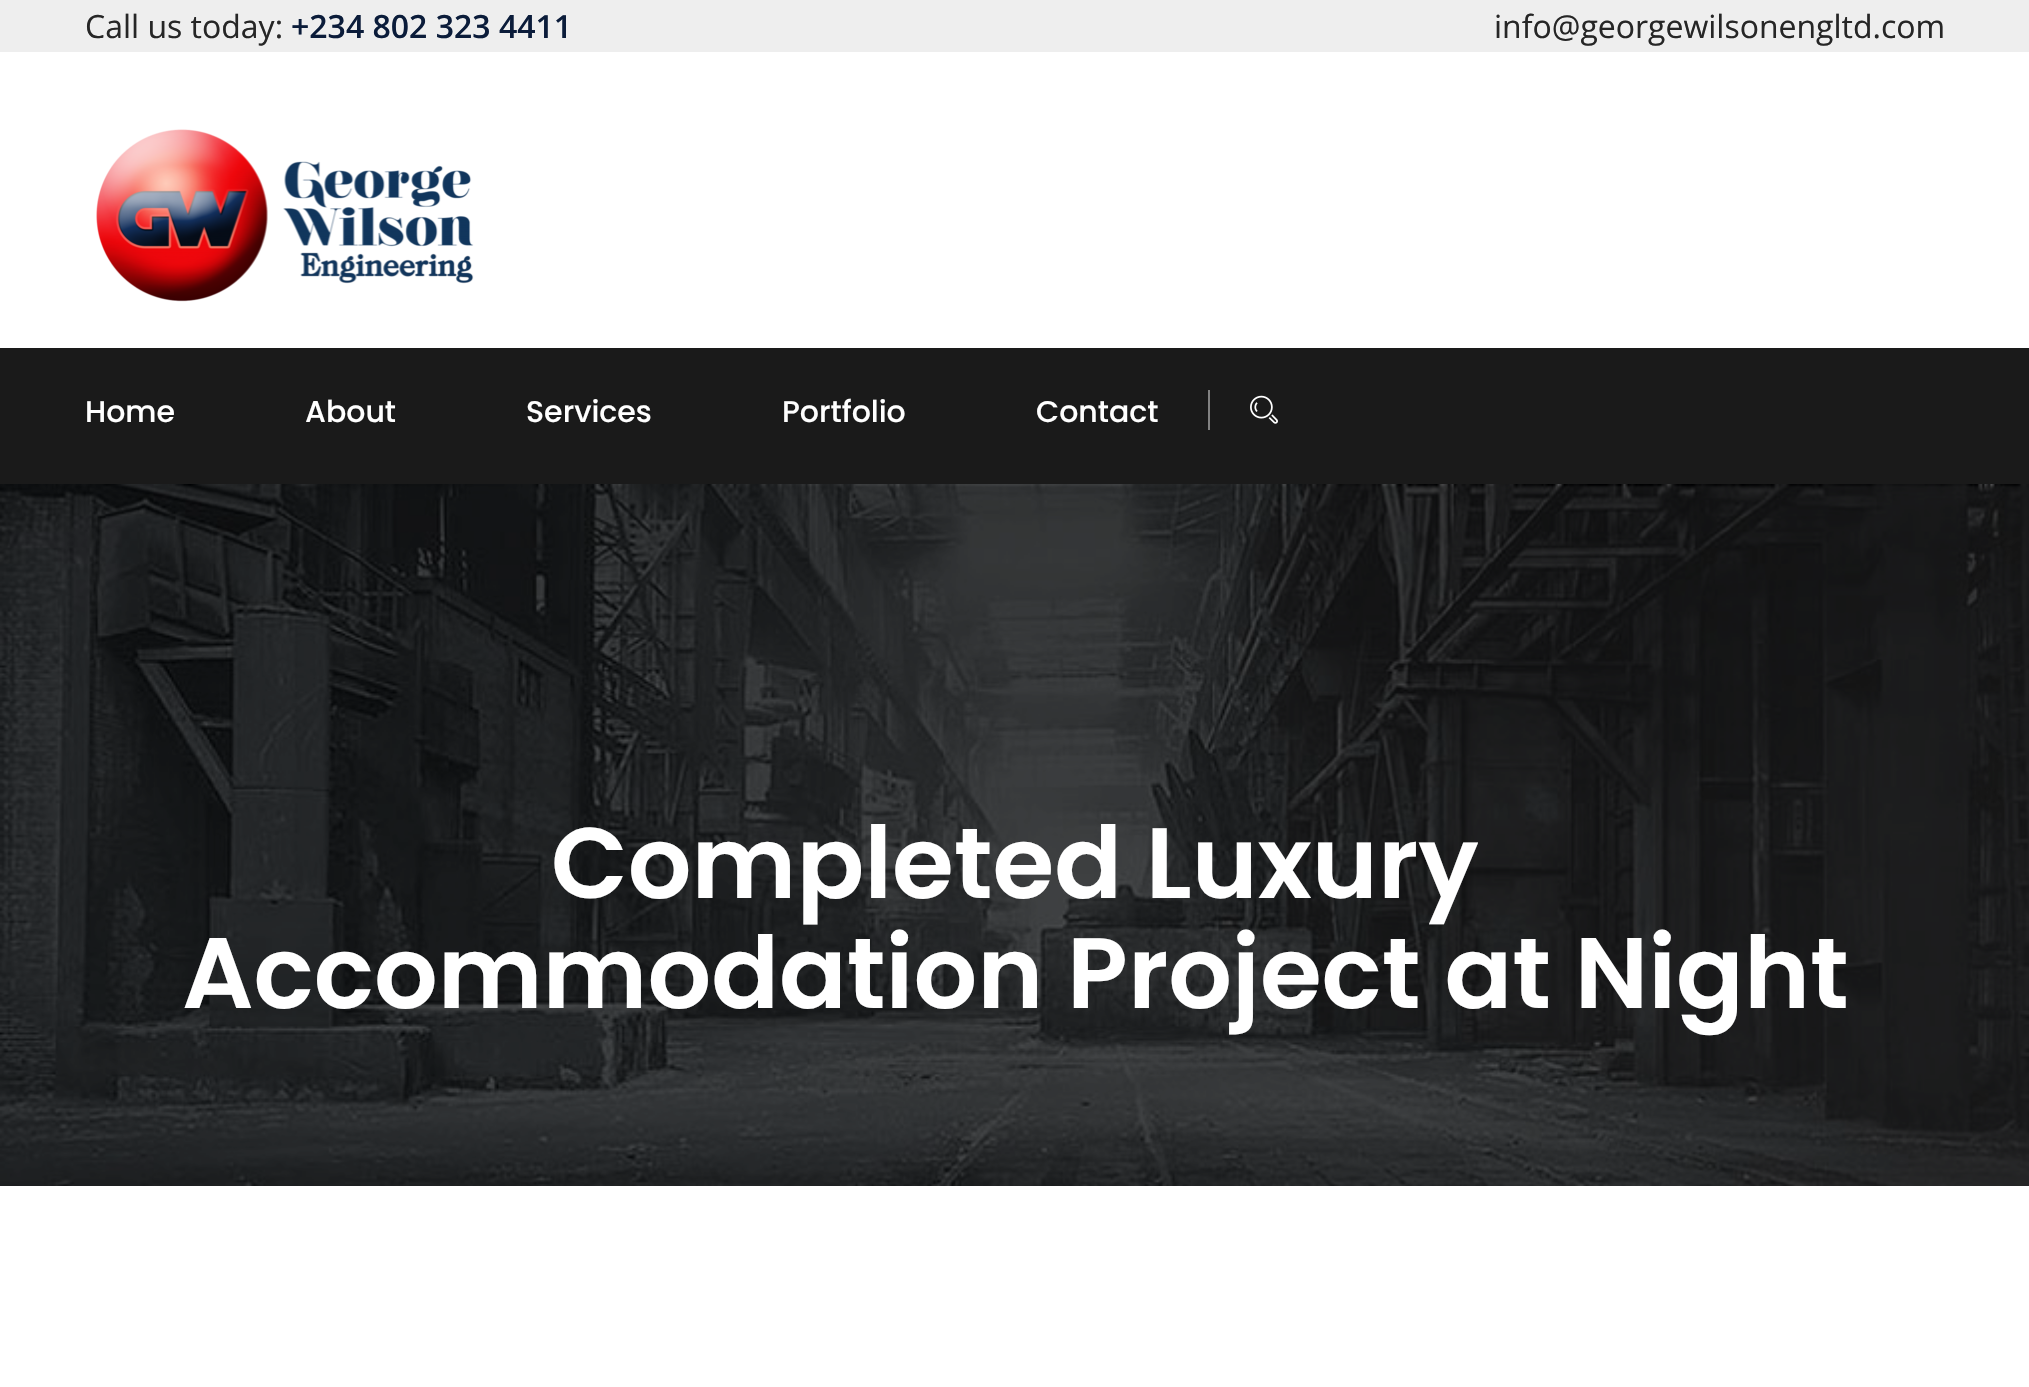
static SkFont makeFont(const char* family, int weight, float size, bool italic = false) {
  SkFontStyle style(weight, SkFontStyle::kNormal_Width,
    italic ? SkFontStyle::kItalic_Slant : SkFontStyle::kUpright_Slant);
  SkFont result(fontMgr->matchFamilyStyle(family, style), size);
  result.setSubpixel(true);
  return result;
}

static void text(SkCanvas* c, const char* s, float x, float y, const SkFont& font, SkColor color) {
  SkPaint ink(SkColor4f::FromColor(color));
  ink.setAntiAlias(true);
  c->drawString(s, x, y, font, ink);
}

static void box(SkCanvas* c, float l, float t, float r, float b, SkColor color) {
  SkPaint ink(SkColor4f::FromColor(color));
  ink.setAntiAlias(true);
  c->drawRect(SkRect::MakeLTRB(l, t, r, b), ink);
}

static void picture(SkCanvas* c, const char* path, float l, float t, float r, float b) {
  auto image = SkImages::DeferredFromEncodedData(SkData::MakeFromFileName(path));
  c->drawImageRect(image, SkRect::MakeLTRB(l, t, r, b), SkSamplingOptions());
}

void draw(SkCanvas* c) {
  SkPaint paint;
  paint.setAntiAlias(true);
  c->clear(0xffffffff);
  box(c, 0, 0, 2029, 52, 0xffeeeeee);
  SkFont face1 = makeFont("Open Sans", 400, 32);
  text(c, "Call us today:", 85, 38, face1, 0xff262626);
  SkFont face2 = makeFont("Open Sans", 600, 32);
  text(c, "+234 802 323 4411", 291, 38, face2, 0xff0b1c3a);
  text(c, "info@georgewilsonengltd.com", 1494, 38, face1, 0xff262626);
  picture(c, "img_01.png", 96, 129, 474, 302);
  box(c, 0, 348, 2029, 484, 0xff1a1a1a);
  SkFont face3 = makeFont("Poppins", 500, 30);
  text(c, "Home", 85, 422, face3, 0xffffffff);
  text(c, "About", 305, 422, face3, 0xffffffff);
  text(c, "Services", 526, 422, face3, 0xffffffff);
  text(c, "Portfolio", 782, 422, face3, 0xffffffff);
  text(c, "Contact", 1036, 422, face3, 0xffffffff);
  box(c, 1208, 390, 1210, 430, 0xff828282);
  picture(c, "img_02.png", 1250, 395, 1278, 424);
  picture(c, "img_03.png", 0, 484, 2029, 1186);
  SkFont face4 = makeFont("Poppins", 600, 100);
  text(c, "Completed Luxury", 551, 898, face4, 0xffffffff);
  text(c, "Accommodation Project at Night", 182, 1008, face4, 0xffffffff);
}
